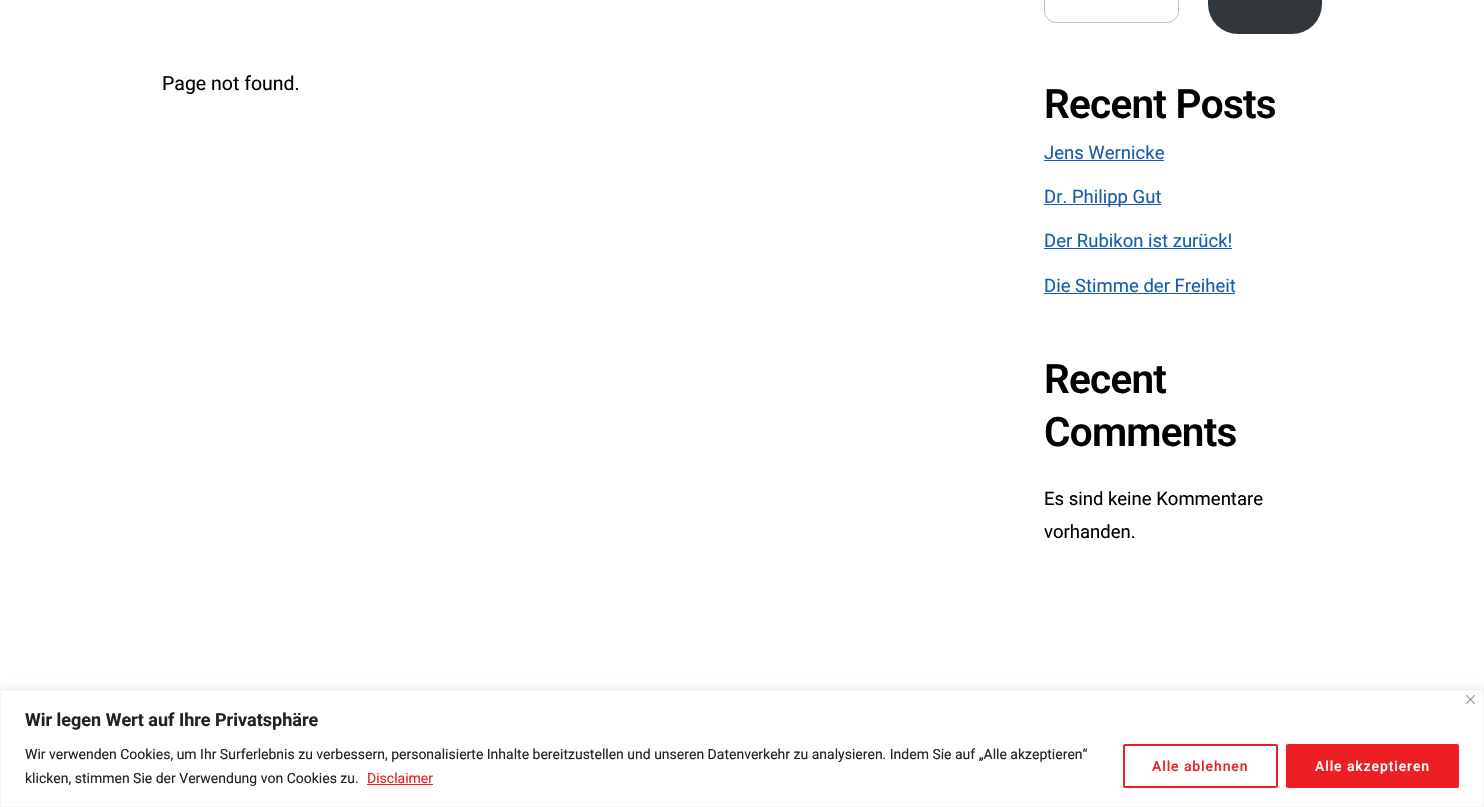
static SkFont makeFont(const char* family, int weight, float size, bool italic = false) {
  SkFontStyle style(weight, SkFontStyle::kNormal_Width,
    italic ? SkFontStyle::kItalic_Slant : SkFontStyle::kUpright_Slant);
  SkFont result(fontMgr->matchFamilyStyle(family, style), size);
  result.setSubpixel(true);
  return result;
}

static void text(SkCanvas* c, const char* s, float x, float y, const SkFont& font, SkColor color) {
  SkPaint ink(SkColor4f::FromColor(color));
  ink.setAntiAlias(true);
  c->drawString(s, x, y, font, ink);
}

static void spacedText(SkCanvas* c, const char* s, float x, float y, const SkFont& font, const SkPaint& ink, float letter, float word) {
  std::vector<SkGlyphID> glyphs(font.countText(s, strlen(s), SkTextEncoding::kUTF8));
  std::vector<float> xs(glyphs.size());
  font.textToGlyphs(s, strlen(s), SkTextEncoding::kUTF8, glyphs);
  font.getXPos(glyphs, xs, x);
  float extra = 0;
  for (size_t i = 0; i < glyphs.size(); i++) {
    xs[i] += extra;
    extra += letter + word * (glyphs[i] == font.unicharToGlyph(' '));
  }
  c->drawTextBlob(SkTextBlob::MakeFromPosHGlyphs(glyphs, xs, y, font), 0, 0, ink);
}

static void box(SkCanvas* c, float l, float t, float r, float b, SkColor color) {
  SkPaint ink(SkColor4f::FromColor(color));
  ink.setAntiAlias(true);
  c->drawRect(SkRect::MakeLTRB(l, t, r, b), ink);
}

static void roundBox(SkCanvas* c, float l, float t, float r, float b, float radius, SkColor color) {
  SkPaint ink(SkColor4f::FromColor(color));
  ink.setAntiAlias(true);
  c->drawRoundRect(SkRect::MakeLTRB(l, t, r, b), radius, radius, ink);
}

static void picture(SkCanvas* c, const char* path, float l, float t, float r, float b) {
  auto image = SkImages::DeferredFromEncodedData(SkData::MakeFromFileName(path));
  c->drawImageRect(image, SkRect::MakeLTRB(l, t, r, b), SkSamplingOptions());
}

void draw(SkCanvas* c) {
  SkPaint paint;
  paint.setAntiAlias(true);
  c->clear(0xffffffff);
  SkFont face1 = makeFont("Roboto", 400, 19.5f);
  text(c, "Page not found.", 162, 90, face1, 0xff000000);
  paint.setStyle(SkPaint::kStroke_Style);
  paint.setStrokeWidth(1);
  paint.setColor(0xffbfbfbf);
  c->drawRoundRect(SkRect::MakeLTRB(1044.5f, -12.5f, 1178.5f, 22.5f), 11.5f, 11.5f, paint);
  roundBox(c, 1208, -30, 1322, 34, 30, 0xff32373c);
  SkFont face2 = makeFont("Roboto", 600, 40.5f);
  paint.setStyle(SkPaint::kFill_Style);
  paint.setColor(0xff000000);
  spacedText(c, "Recent Posts", 1044, 118, face2, paint, -0.75f, 0);
  SkFont face3 = makeFont("Roboto", 400, 18.5f);
  text(c, "Jens Wernicke", 1044, 159, face3, 0xff185bac);
  box(c, 1044, 160, 1164, 161, 0xff185bac);
  box(c, 1044, 204, 1161, 205, 0xff185bac);
  text(c, "Dr. Philipp Gut", 1044, 203, face3, 0xff185bac);
  text(c, "Der Rubikon ist zurück!", 1044, 247, face3, 0xff185bac);
  box(c, 1044, 248, 1232, 249, 0xff185bac);
  text(c, "Die Stimme der Freiheit", 1044, 292, face3, 0xff185bac);
  box(c, 1044, 293, 1235, 294, 0xff185bac);
  spacedText(c, "Recent", 1044, 393, face2, paint, -0.75f, 0);
  spacedText(c, "Comments", 1044, 446, face2, paint, -0.75f, 0);
  text(c, "Es sind keine Kommentare", 1044, 505, face3, 0xff000000);
  text(c, "vorhanden.", 1044, 538, face3, 0xff000000);
  paint.setColor(0x4dacabab);
  paint.setMaskFilter(SkMaskFilter::MakeBlur(kNormal_SkBlurStyle, 5));
  c->drawRect(SkRect::MakeLTRB(0, 689, 1484, 806), paint);
  paint.setMaskFilter(nullptr);
  paint.setColor(0xffffffff);
  c->drawRect(SkRect::MakeLTRB(0.5f, 690.5f, 1483.5f, 806.5f), paint);
  paint.setStyle(SkPaint::kStroke_Style);
  paint.setColor(0xfff4f4f4);
  c->drawRect(SkRect::MakeLTRB(0.5f, 690.5f, 1483.5f, 806.5f), paint);
  picture(c, "img_01.png", 1466, 695, 1475, 704);
  SkFont face4 = makeFont("Roboto", 700, 18);
  text(c, "Wir legen Wert auf Ihre Privatsphäre", 25, 726, face4, 0xff212121);
  SkFont face5 = makeFont("Roboto", 400, 14);
  text(c, "Wir verwenden Cookies, um Ihr Surferlebnis zu verbessern, personalisierte Inhalte bereitzustellen und unseren Datenverkehr zu analysieren. Indem Sie auf „Alle akzeptieren“", 25, 759, face5, 0xff212121);
  text(c, "klicken, stimmen Sie der Verwendung von Cookies zu.", 25, 783, face5, 0xff212121);
  text(c, "Disclaimer", 367, 783, face5, 0xffed1e24);
  box(c, 367, 784, 433, 785, 0xffed1e24);
  paint.setStrokeWidth(2);
  paint.setColor(0xffed1e24);
  c->drawRoundRect(SkRect::MakeLTRB(1124, 745, 1277, 787), 1, 1, paint);
  SkFont face6 = makeFont("Roboto", 500, 14);
  paint.setStyle(SkPaint::kFill_Style);
  spacedText(c, "Alle ablehnen", 1152, 771, face6, paint, 0.9f, 0);
  c->drawRoundRect(SkRect::MakeLTRB(1287, 745, 1458, 787), 1, 1, paint);
  paint.setStyle(SkPaint::kStroke_Style);
  c->drawRoundRect(SkRect::MakeLTRB(1287, 745, 1458, 787), 1, 1, paint);
  paint.setStyle(SkPaint::kFill_Style);
  paint.setColor(0xffffffff);
  spacedText(c, "Alle akzeptieren", 1315, 771, face6, paint, 0.9f, 0);
}
